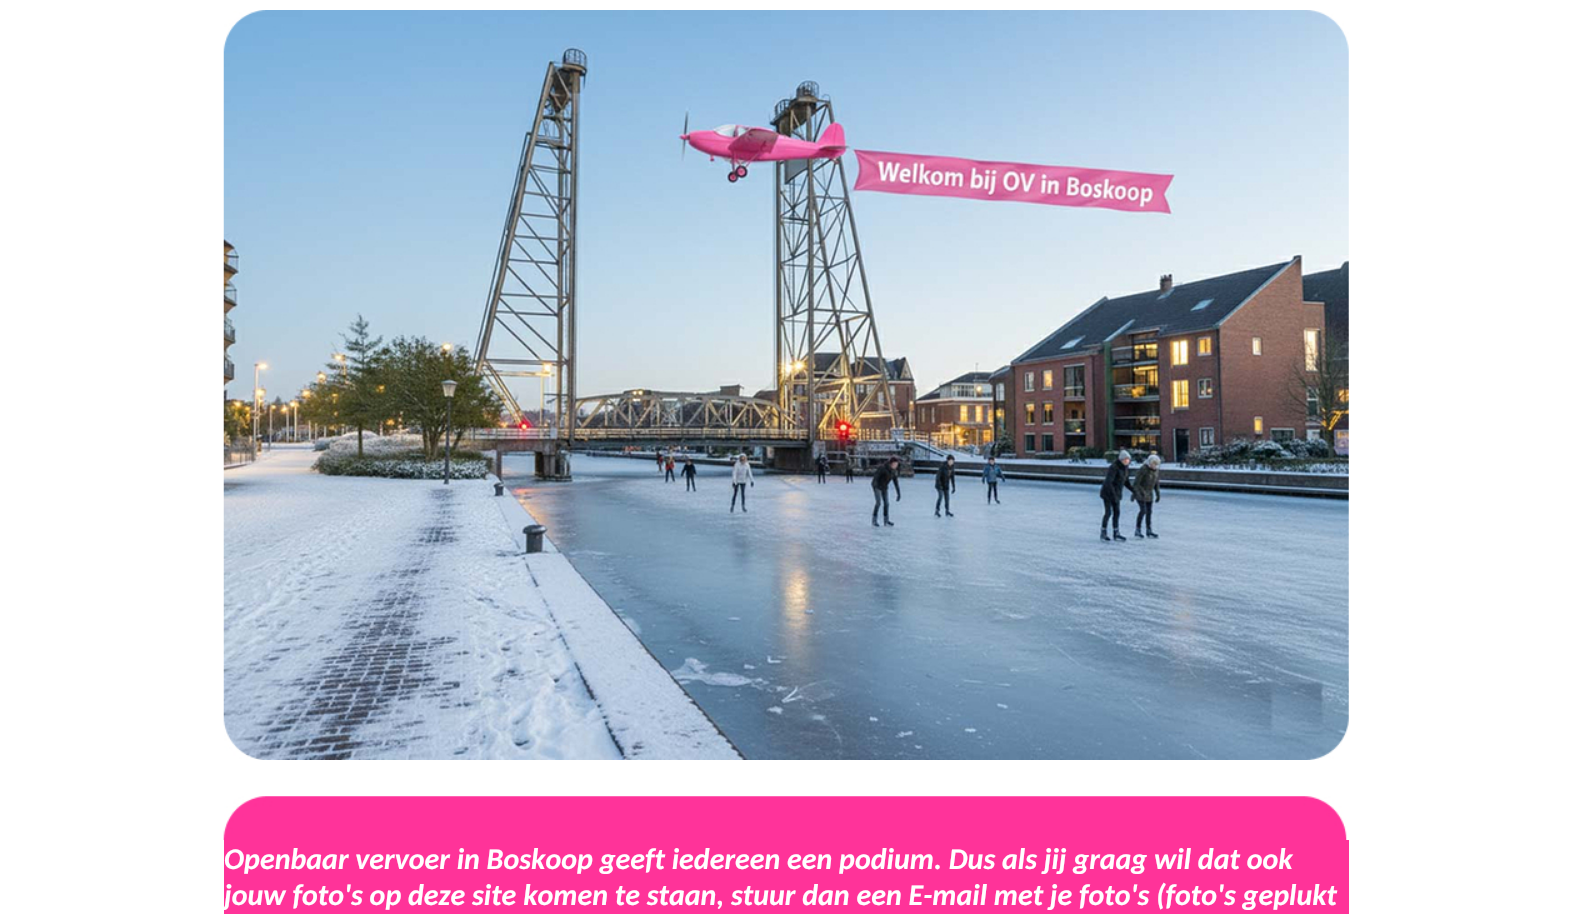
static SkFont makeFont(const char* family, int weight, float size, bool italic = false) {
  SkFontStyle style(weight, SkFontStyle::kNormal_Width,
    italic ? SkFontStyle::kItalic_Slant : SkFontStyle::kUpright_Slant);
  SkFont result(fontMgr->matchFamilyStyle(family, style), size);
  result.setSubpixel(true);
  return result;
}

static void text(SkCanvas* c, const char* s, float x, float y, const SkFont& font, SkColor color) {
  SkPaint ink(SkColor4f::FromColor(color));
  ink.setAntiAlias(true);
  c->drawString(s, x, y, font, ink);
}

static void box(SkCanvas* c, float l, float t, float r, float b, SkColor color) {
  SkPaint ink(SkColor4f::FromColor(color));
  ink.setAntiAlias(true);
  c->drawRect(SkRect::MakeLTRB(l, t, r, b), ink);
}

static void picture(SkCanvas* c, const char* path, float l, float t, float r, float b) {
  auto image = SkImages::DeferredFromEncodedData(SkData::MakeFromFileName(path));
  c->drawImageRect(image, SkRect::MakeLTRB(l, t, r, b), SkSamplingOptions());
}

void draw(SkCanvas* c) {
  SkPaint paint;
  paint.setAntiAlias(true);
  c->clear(0xffffffff);
  picture(c, "img_01.png", 223, 10, 1349, 760);
  picture(c, "img_02.png", 223, 796, 1347, 840);
  box(c, 224, 840, 1349, 914, 0xffff3399);
  SkFont face1 = makeFont("Carlito", 700, 30, true);
  text(c, "Openbaar vervoer in Boskoop geeft iedereen een podium. Dus als jij graag wil dat ook", 224, 869, face1, 0xffffffff);
  text(c, "jouw foto's op deze site komen te staan, stuur dan een E-mail met je foto's (foto's geplukt", 224, 905, face1, 0xffffffff);
}
